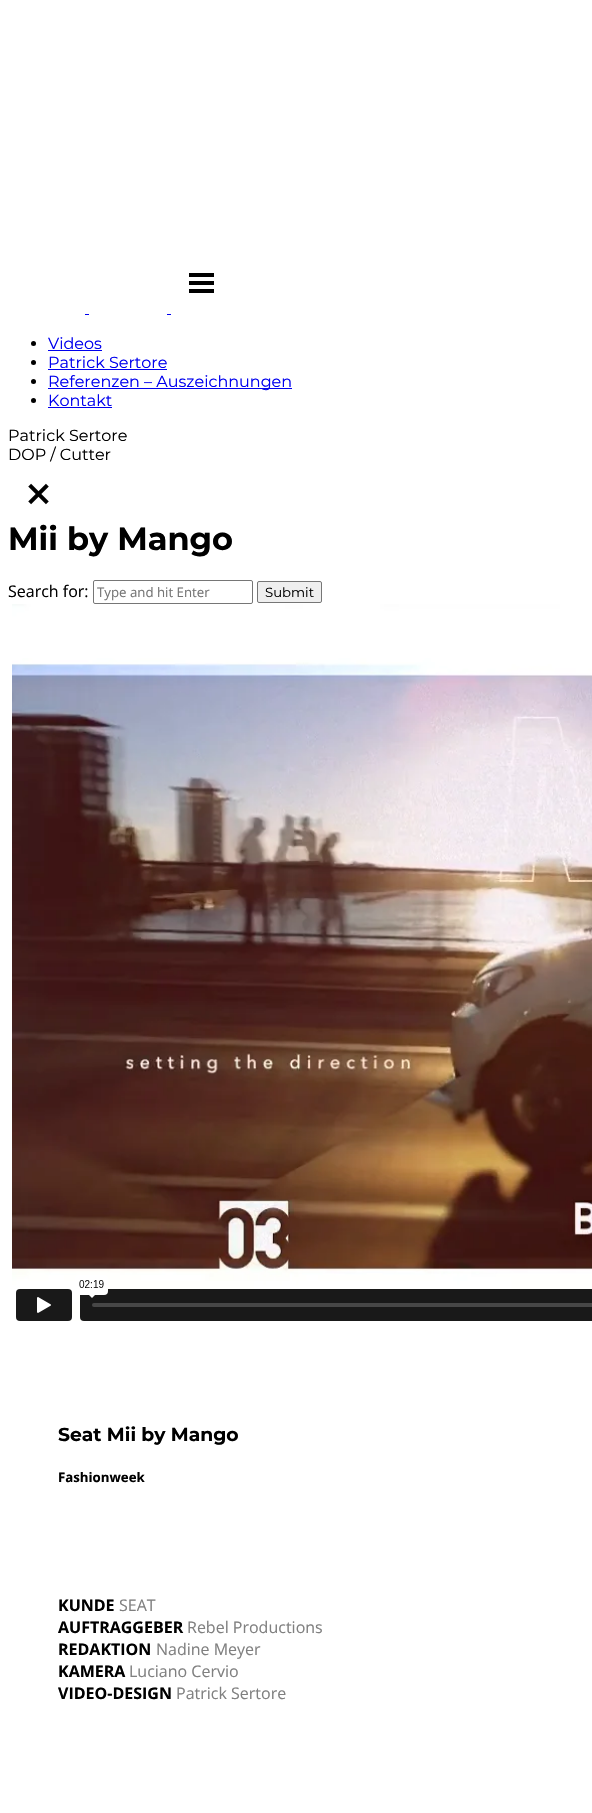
static SkFont makeFont(const char* family, int weight, float size, bool italic = false) {
  SkFontStyle style(weight, SkFontStyle::kNormal_Width,
    italic ? SkFontStyle::kItalic_Slant : SkFontStyle::kUpright_Slant);
  SkFont result(fontMgr->matchFamilyStyle(family, style), size);
  result.setSubpixel(true);
  return result;
}

static void text(SkCanvas* c, const char* s, float x, float y, const SkFont& font, SkColor color) {
  SkPaint ink(SkColor4f::FromColor(color));
  ink.setAntiAlias(true);
  c->drawString(s, x, y, font, ink);
}

static void box(SkCanvas* c, float l, float t, float r, float b, SkColor color) {
  SkPaint ink(SkColor4f::FromColor(color));
  ink.setAntiAlias(true);
  c->drawRect(SkRect::MakeLTRB(l, t, r, b), ink);
}

static void picture(SkCanvas* c, const char* path, float l, float t, float r, float b) {
  auto image = SkImages::DeferredFromEncodedData(SkData::MakeFromFileName(path));
  c->drawImageRect(image, SkRect::MakeLTRB(l, t, r, b), SkSamplingOptions());
}

void draw(SkCanvas* c) {
  SkPaint paint;
  paint.setAntiAlias(true);
  c->clear(0xffffffff);
  box(c, 189, 273, 214, 277, 0xff000000);
  box(c, 189, 281, 214, 285, 0xff000000);
  box(c, 189, 289, 214, 293, 0xff000000);
  box(c, 85, 314, 89, 315, 0xff0000ee);
  box(c, 167, 314, 171, 315, 0xff0000ee);
  paint.setColor(0xff000000);
  c->drawCircle(33.5f, 343.5f, 2.5f, paint);
  SkFont face1 = makeFont("Montserrat", 400, 16);
  text(c, "Videos", 48, 349, face1, 0xff0000ee);
  box(c, 48, 350, 102, 351, 0xff0000ee);
  c->drawCircle(33.5f, 362.5f, 2.5f, paint);
  text(c, "Patrick Sertore", 48, 368, face1, 0xff0000ee);
  box(c, 48, 369, 167, 370, 0xff0000ee);
  c->drawCircle(33.5f, 381.5f, 2.5f, paint);
  box(c, 48, 388, 292, 389, 0xff0000ee);
  text(c, "Referenzen – Auszeichnungen", 48, 387, face1, 0xff0000ee);
  c->drawCircle(33.5f, 400.5f, 2.5f, paint);
  text(c, "Kontakt", 48, 406, face1, 0xff0000ee);
  box(c, 48, 407, 112, 408, 0xff0000ee);
  text(c, "Patrick Sertore", 8, 441, face1, 0xff000000);
  text(c, "DOP / Cutter", 8, 460, face1, 0xff000000);
  picture(c, "img_01.png", 28, 483, 49, 505);
  SkFont face2 = makeFont("Montserrat", 700, 32);
  text(c, "Mii by Mango", 8, 550, face2, 0xff000000);
  SkFont face3 = makeFont("Open Sans", 400, 16);
  text(c, "Search for:", 8, 597, face3, 0xff000000);
  paint.setStyle(SkPaint::kStroke_Style);
  paint.setStrokeWidth(1);
  paint.setColor(0xff767676);
  c->drawRoundRect(SkRect::MakeLTRB(93.5f, 580.5f, 252.5f, 603.5f), 1.5f, 1.5f, paint);
  SkFont face4 = makeFont("Open Sans", 400, 13.25f);
  text(c, "Type and hit Enter", 97, 597, face4, 0xff757575);
  paint.setStyle(SkPaint::kFill_Style);
  paint.setColor(0xffefefef);
  c->drawRoundRect(SkRect::MakeLTRB(257.5f, 581.5f, 321.5f, 602.5f), 1.5f, 1.5f, paint);
  paint.setStyle(SkPaint::kStroke_Style);
  paint.setColor(0xff767676);
  c->drawRoundRect(SkRect::MakeLTRB(257.5f, 581.5f, 321.5f, 602.5f), 1.5f, 1.5f, paint);
  SkFont face5 = makeFont("Montserrat", 400, 13.25f);
  text(c, "Submit", 265, 597, face5, 0xff000000);
  picture(c, "img_02.png", 12, 604, 592, 1321);
  SkFont face6 = makeFont("Montserrat", 700, 18.75f);
  text(c, "Seat Mii by Mango", 58, 1441, face6, 0xff000000);
  SkFont face7 = makeFont("Open Sans", 700, 13.25f);
  text(c, "Fashionweek", 58, 1482, face7, 0xff000000);
  SkFont face8 = makeFont("Open Sans", 700, 16);
  text(c, "KUNDE", 58, 1611, face8, 0xff000000);
  text(c, "SEAT", 119, 1611, face3, 0xff808080);
  text(c, "AUFTRAGGEBER", 58, 1633, face8, 0xff000000);
  text(c, "Rebel Productions", 187, 1633, face3, 0xff808080);
  text(c, "REDAKTION", 58, 1655, face8, 0xff000000);
  text(c, "Nadine Meyer", 156, 1655, face3, 0xff808080);
  text(c, "KAMERA", 58, 1677, face8, 0xff000000);
  text(c, "Luciano Cervio", 129, 1677, face3, 0xff808080);
  text(c, "VIDEO-DESIGN", 58, 1699, face8, 0xff000000);
  text(c, "Patrick Sertore", 176, 1699, face3, 0xff808080);
}
